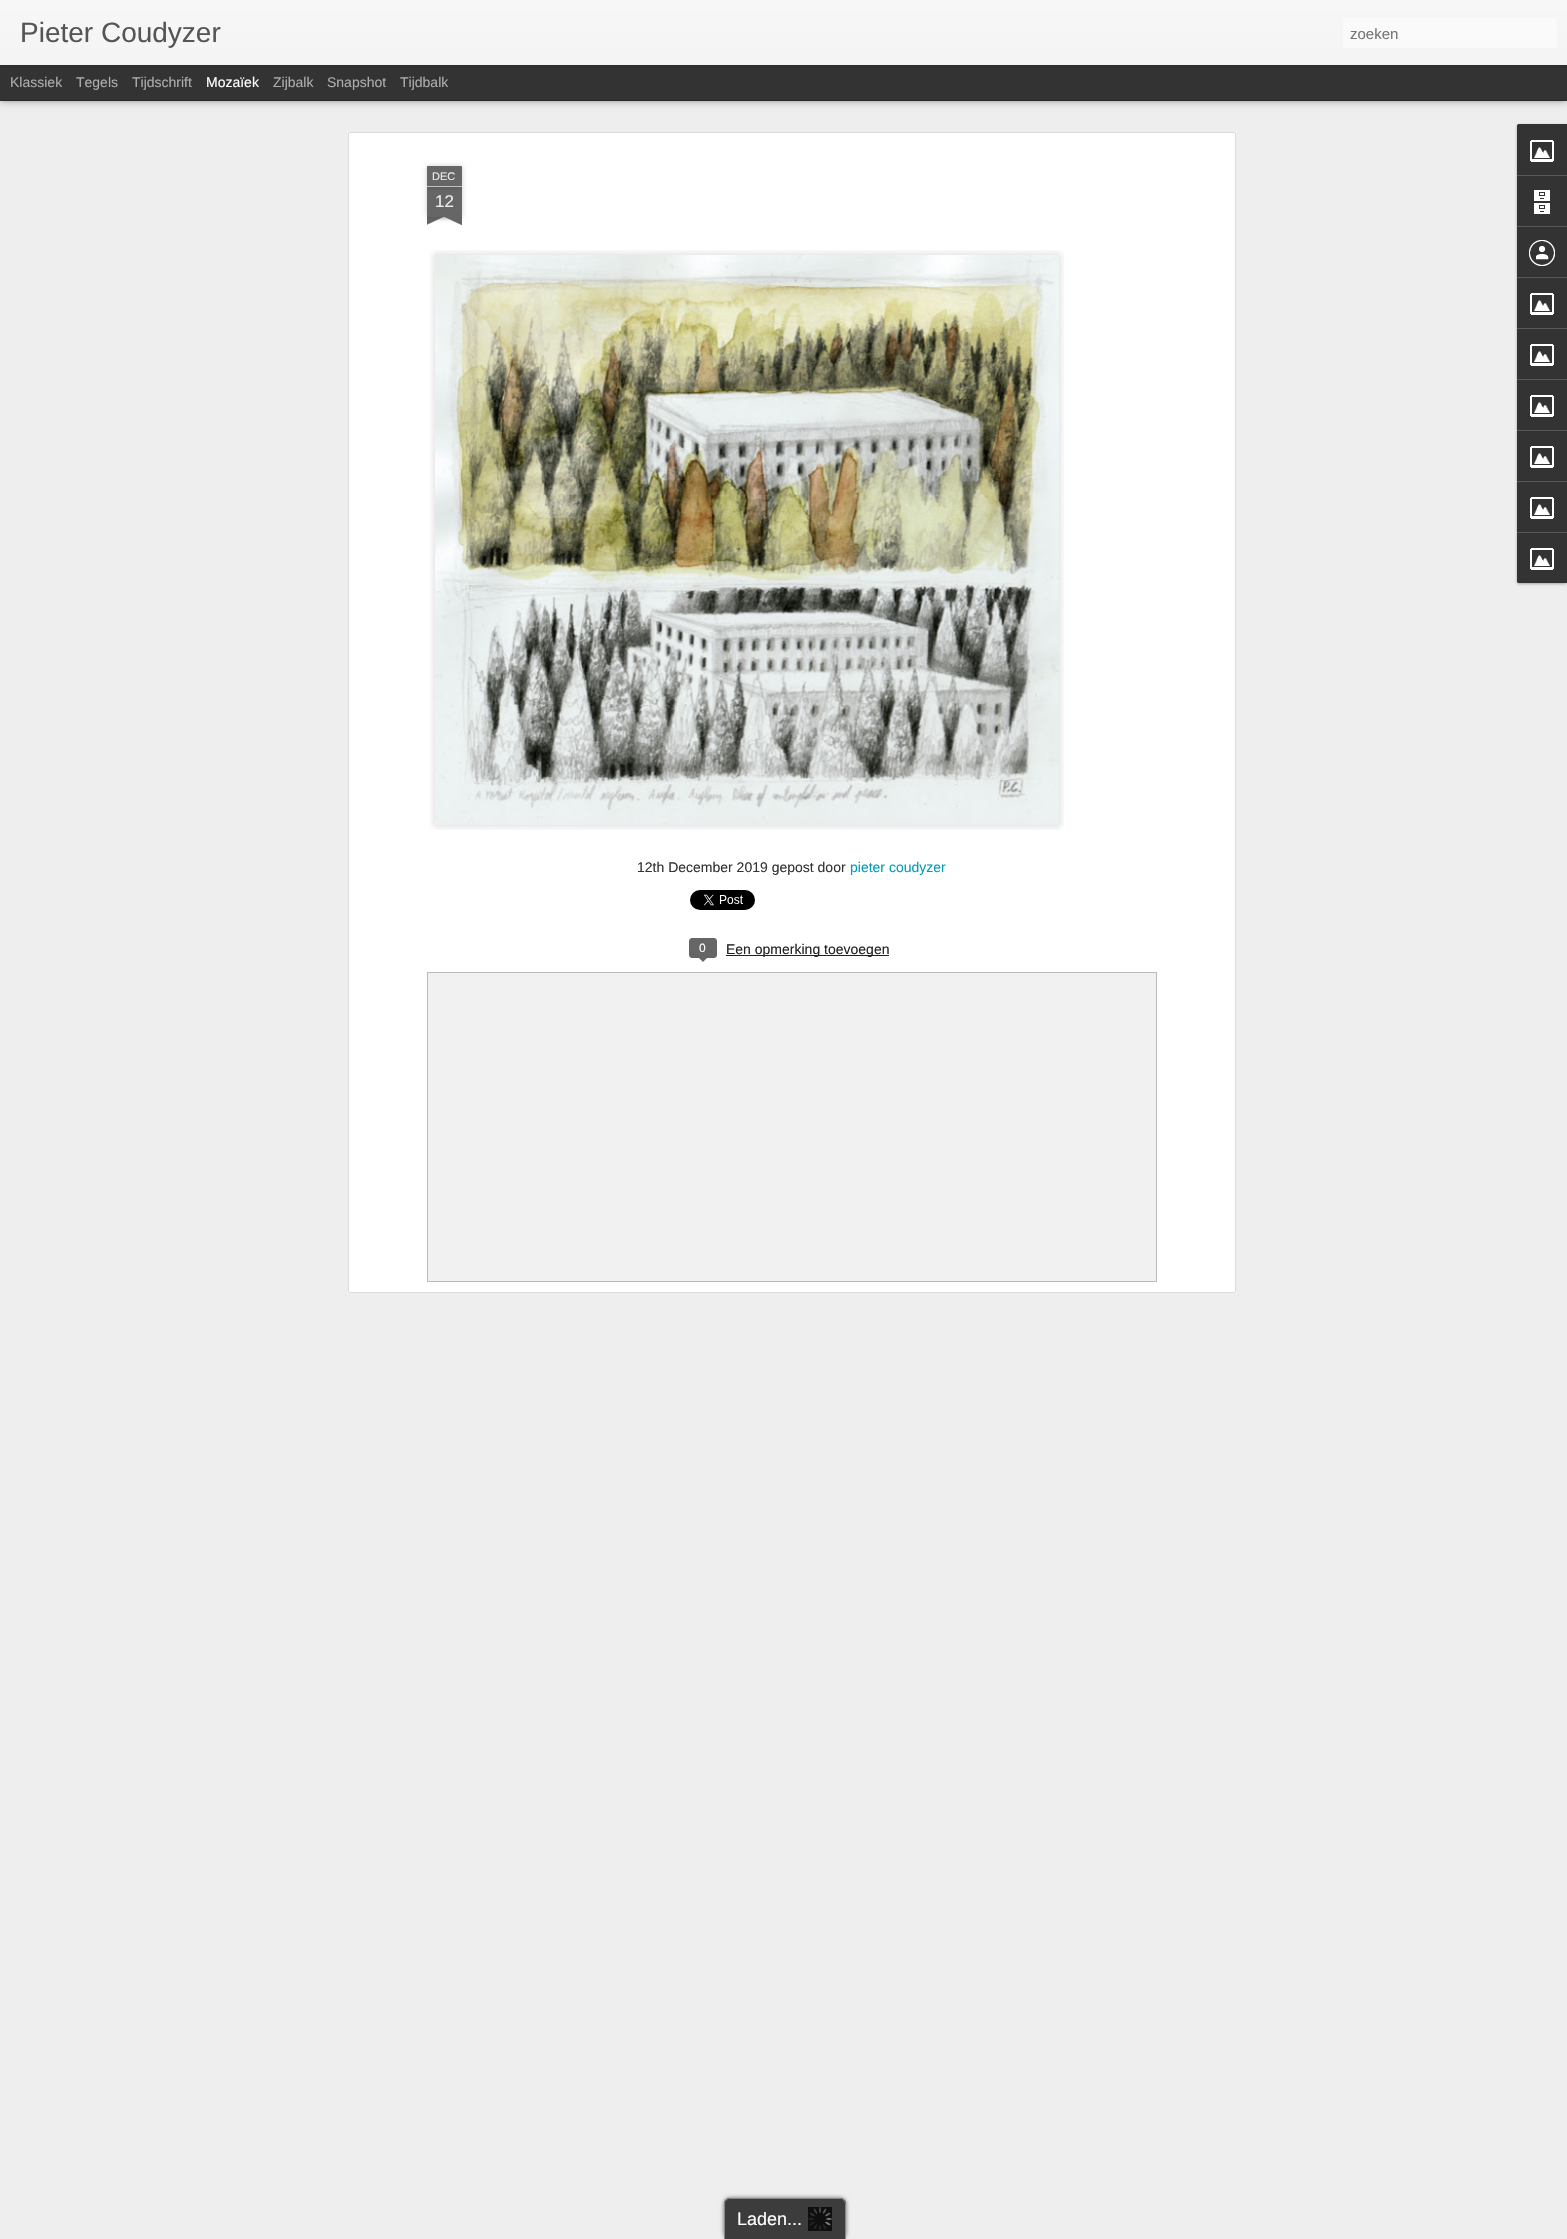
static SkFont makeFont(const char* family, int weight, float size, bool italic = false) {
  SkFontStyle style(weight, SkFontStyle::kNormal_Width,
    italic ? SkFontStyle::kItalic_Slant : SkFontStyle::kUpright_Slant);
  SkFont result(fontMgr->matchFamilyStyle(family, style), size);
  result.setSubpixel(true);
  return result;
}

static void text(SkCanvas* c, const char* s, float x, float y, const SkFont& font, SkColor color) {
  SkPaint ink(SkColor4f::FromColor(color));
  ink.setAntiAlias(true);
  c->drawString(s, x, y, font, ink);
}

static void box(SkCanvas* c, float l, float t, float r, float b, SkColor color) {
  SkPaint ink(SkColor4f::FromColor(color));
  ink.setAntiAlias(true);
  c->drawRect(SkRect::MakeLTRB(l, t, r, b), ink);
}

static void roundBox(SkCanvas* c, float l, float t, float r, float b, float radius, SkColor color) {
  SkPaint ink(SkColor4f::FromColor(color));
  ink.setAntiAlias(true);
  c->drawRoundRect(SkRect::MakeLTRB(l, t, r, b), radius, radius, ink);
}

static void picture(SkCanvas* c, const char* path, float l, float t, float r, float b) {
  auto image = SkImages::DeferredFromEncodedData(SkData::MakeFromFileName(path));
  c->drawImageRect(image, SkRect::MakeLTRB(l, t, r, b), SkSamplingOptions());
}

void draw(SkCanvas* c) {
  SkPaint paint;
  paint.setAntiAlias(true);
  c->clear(0xff333333);
  box(c, 0, 101, 1567, 2239, 0xffeeeeee);
  paint.setColor(0x80000000);
  paint.setMaskFilter(SkMaskFilter::MakeBlur(kNormal_SkBlurStyle, 4));
  c->drawRect(SkRect::MakeLTRB(0, 65, 1567, 100), paint);
  paint.setMaskFilter(nullptr);
  box(c, 0, 65, 1567, 100, 0xff333333);
  paint.setColor(0x4d000000);
  paint.setMaskFilter(SkMaskFilter::MakeBlur(kNormal_SkBlurStyle, 2.5f));
  c->drawRect(SkRect::MakeLTRB(0, 0, 1567, 65), paint);
  paint.setMaskFilter(nullptr);
  {
    const SkColor colors[] = {0xfff7f7f7, 0xfff4f4f4};
    const float stops[] = {0, 1};
    const SkPoint ends[] = {{0, 0}, {0, 65}};
    paint.setShader(SkGradientShader::MakeLinear(ends, colors, stops, 2, SkTileMode::kClamp));
    paint.setAlpha(255);
  }
  c->drawRect(SkRect::MakeLTRB(0, 0, 1567, 65), paint);
  SkFont face1 = makeFont("Liberation Sans", 400, 28);
  text(c, "Pieter Coudyzer", 20, 42, face1, 0xff555555);
  roundBox(c, 1343, 18, 1557, 48, 3, 0xfffafafa);
  SkFont face2 = makeFont("Liberation Sans", 400, 15);
  text(c, "zoeken", 1350, 39, face2, 0xff757575);
  SkFont face3 = makeFont("Liberation Sans", 400, 14);
  text(c, "Klassiek", 10, 87, face3, 0xffadadad);
  text(c, "Tegels", 76, 87, face3, 0xffadadad);
  text(c, "Tijdschrift", 132, 87, face3, 0xffadadad);
  text(c, "Mozaïek", 206, 87, face3, 0xffffffff);
  text(c, "Zijbalk", 273, 87, face3, 0xffadadad);
  text(c, "Snapshot", 327, 87, face3, 0xffadadad);
  text(c, "Tijdbalk", 400, 87, face3, 0xffadadad);
  box(c, 347, 131, 1237, 1294, 0xffffffff);
  picture(c, "img_01.png", 347, 131, 1237, 1294);
  paint.setShader(nullptr);
  paint.setColor(0x33000000);
  paint.setMaskFilter(SkMaskFilter::MakeBlur(kNormal_SkBlurStyle, 2.5f));
  c->drawRect(SkRect::MakeLTRB(427, 187, 462, 217), paint);
  paint.setMaskFilter(nullptr);
  box(c, 427, 187, 462, 217, 0xff666666);
  paint.setMaskFilter(SkMaskFilter::MakeBlur(kNormal_SkBlurStyle, 2.5f));
  c->drawRoundRect(SkRect::MakeLTRB(427, 166, 462, 187), 1, 1, paint);
  paint.setMaskFilter(nullptr);
  paint.setColor(0xff666666);
  c->drawPath(SkPathBuilder().moveTo(428, 166).lineTo(461, 166).cubicTo(461.5f, 166, 462, 166.5f, 462, 167).lineTo(462, 187).lineTo(427, 187).lineTo(427, 167).cubicTo(427, 166.5f, 427.5f, 166, 428, 166).close().detach(), paint);
  box(c, 427, 186, 462, 187, 0xffc2c2c2);
  SkFont face4 = makeFont("Liberation Sans", 400, 11);
  text(c, "DEC", 432, 180, face4, 0xffeeeeee);
  SkFont face5 = makeFont("Liberation Sans", 400, 17);
  text(c, "12", 435, 207, face5, 0xffeeeeee);
  c->save();
  c->clipRect(SkRect::MakeLTRB(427, 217, 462, 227));
  paint.setColor(0x33000000);
  paint.setMaskFilter(SkMaskFilter::MakeBlur(kNormal_SkBlurStyle, 2.5f));
  c->drawRect(SkRect::MakeLTRB(418, 207, 468, 217), paint);
  paint.setMaskFilter(nullptr);
  c->restore();
  c->save();
  c->clipRect(SkRect::MakeLTRB(427, 217, 462, 227));
  paint.setColor(0xff666666);
  c->drawPath(SkPathBuilder().moveTo(418, 218).lineTo(463, 197).lineTo(467, 206).lineTo(422, 227).close().detach(), paint);
  c->restore();
  c->save();
  c->clipRect(SkRect::MakeLTRB(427, 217, 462, 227));
  paint.setColor(0x33000000);
  paint.setMaskFilter(SkMaskFilter::MakeBlur(kNormal_SkBlurStyle, 2.5f));
  c->drawRect(SkRect::MakeLTRB(421, 207, 471, 217), paint);
  paint.setMaskFilter(nullptr);
  c->restore();
  c->save();
  c->clipRect(SkRect::MakeLTRB(427, 217, 462, 227));
  paint.setColor(0xff666666);
  c->drawPath(SkPathBuilder().moveTo(425, 197).lineTo(470, 218).lineTo(466, 227).lineTo(421, 206).close().detach(), paint);
  c->restore();
  picture(c, "img_02.png", 430, 250, 1064, 830);
  picture(c, "img_03.png", 437, 261, 1054, 806);
  text(c, "12th December 2019 gepost door", 637, 872, face3, 0xff333333);
  text(c, "pieter coudyzer", 850, 872, face3, 0xff009eb8);
  picture(c, "img_04.png", 690, 890, 755, 910);
  c->drawRoundRect(SkRect::MakeLTRB(689.5f, 938.5f, 716.5f, 957.5f), 2.5f, 2.5f, paint);
  paint.setStyle(SkPaint::kStroke_Style);
  paint.setStrokeWidth(1);
  c->drawRoundRect(SkRect::MakeLTRB(689.5f, 938.5f, 716.5f, 957.5f), 2.5f, 2.5f, paint);
  SkFont face6 = makeFont("Liberation Sans", 400, 12);
  text(c, "0", 699, 952, face6, 0xffffffff);
  paint.setStyle(SkPaint::kFill_Style);
  c->drawPath(SkPathBuilder().moveTo(698, 957).lineTo(708, 957).lineTo(703, 962).close().detach(), paint);
  box(c, 726, 955, 889, 956, 0xff222222);
  text(c, "Een opmerking toevoegen", 726, 954, face3, 0xff222222);
  paint.setColor(0xfff1f1f1);
  c->drawRect(SkRect::MakeLTRB(427.5f, 972.5f, 1156.5f, 1281.5f), paint);
  paint.setStyle(SkPaint::kStroke_Style);
  paint.setColor(0xffbbbbbb);
  c->drawRect(SkRect::MakeLTRB(427.5f, 972.5f, 1156.5f, 1281.5f), paint);
  paint.setStyle(SkPaint::kFill_Style);
  paint.setColor(0x4d000000);
  paint.setMaskFilter(SkMaskFilter::MakeBlur(kNormal_SkBlurStyle, 1.5f));
  c->drawRoundRect(SkRect::MakeLTRB(1517, 125, 1567, 584), 2, 2, paint);
  paint.setMaskFilter(nullptr);
  paint.setColor(0xff333333);
  c->drawPath(SkPathBuilder().moveTo(1519, 124).lineTo(1567, 124).lineTo(1567, 583).lineTo(1519, 583).cubicTo(1518, 583, 1517, 582, 1517, 581).lineTo(1517, 126).cubicTo(1517, 125, 1518, 124, 1519, 124).close().detach(), paint);
  c->drawPath(SkPathBuilder().moveTo(1519, 124).lineTo(1567, 124).lineTo(1567, 175).lineTo(1517, 175).lineTo(1517, 126).cubicTo(1517, 125, 1518, 124, 1519, 124).close().detach(), paint);
  picture(c, "img_05.png", 1530, 140, 1554, 162);
  box(c, 1517, 175, 1567, 176, 0xff585858);
  picture(c, "img_06.png", 1534, 190, 1550, 214);
  box(c, 1517, 226, 1567, 227, 0xff585858);
  picture(c, "img_07.png", 1529, 240, 1555, 266);
  box(c, 1517, 277, 1567, 278, 0xff585858);
  picture(c, "img_05.png", 1530, 293, 1554, 315);
  box(c, 1517, 328, 1567, 329, 0xff585858);
  picture(c, "img_05.png", 1530, 344, 1554, 366);
  box(c, 1517, 379, 1567, 380, 0xff585858);
  picture(c, "img_05.png", 1530, 395, 1554, 417);
  box(c, 1517, 430, 1567, 431, 0xff585858);
  picture(c, "img_05.png", 1530, 446, 1554, 468);
  box(c, 1517, 481, 1567, 482, 0xff585858);
  picture(c, "img_05.png", 1530, 497, 1554, 519);
  c->drawPath(SkPathBuilder().moveTo(1517, 532).lineTo(1567, 532).lineTo(1567, 583).lineTo(1519, 583).cubicTo(1518, 583, 1517, 582, 1517, 581).close().detach(), paint);
  box(c, 1517, 532, 1567, 533, 0xff585858);
  picture(c, "img_05.png", 1530, 548, 1554, 570);
  paint.setColor(0xff626262);
  paint.setMaskFilter(SkMaskFilter::MakeBlur(kNormal_SkBlurStyle, 2));
  c->drawRoundRect(SkRect::MakeLTRB(724, 2198, 846, 2239), 6, 6, paint);
  paint.setMaskFilter(nullptr);
  paint.setColor(0xff3c3c3c);
  c->drawPath(SkPathBuilder().moveTo(730, 2198).lineTo(840, 2198).cubicTo(843.5f, 2198, 846, 2200.5f, 846, 2204).lineTo(846, 2239).lineTo(724, 2239).lineTo(724, 2204).cubicTo(724, 2200.5f, 726.5f, 2198, 730, 2198).close().detach(), paint);
  paint.setColor(0xff888888);
  c->drawPath(SkPathBuilder(SkPathFillType::kEvenOdd).moveTo(730, 2198).lineTo(840, 2198).cubicTo(843, 2198, 846, 2201, 846, 2204).lineTo(846, 2239).lineTo(724, 2239).lineTo(724, 2204).cubicTo(724, 2201, 727, 2198, 730, 2198).close().moveTo(730, 2199).lineTo(840, 2199).cubicTo(843, 2199, 845, 2201, 845, 2204).lineTo(845, 2239).lineTo(725, 2239).lineTo(725, 2204).cubicTo(725, 2201, 727, 2199, 730, 2199).close().detach(), paint);
  picture(c, "img_08.png", 808, 2207, 832, 2231);
  SkFont face7 = makeFont("Liberation Sans", 400, 18);
  text(c, "Laden...", 737, 2225, face7, 0xffffffff);
}
